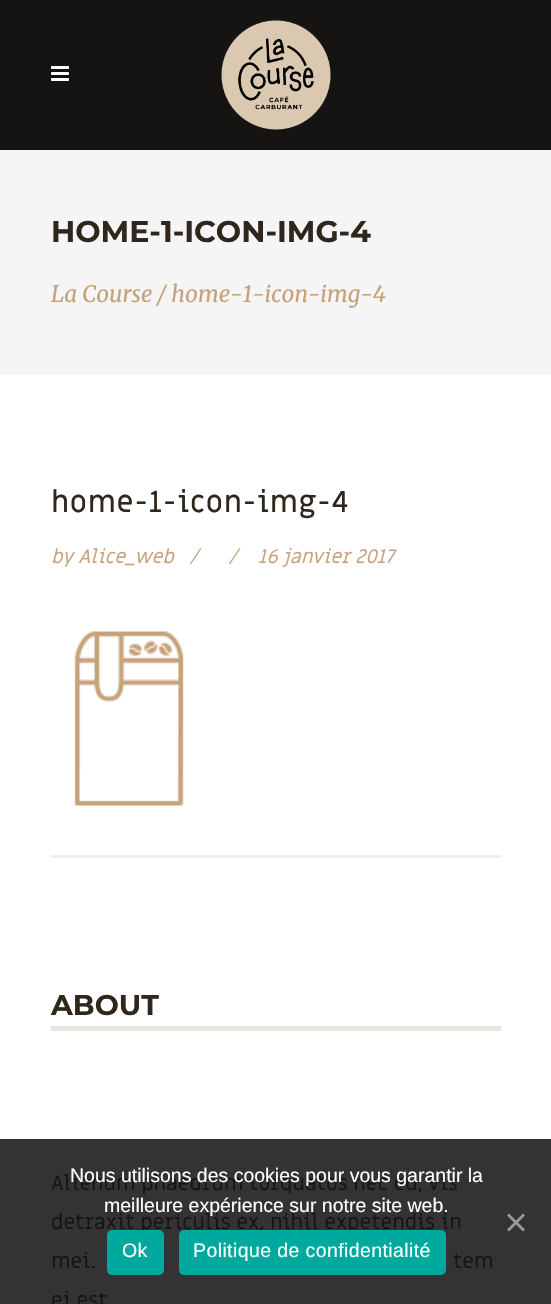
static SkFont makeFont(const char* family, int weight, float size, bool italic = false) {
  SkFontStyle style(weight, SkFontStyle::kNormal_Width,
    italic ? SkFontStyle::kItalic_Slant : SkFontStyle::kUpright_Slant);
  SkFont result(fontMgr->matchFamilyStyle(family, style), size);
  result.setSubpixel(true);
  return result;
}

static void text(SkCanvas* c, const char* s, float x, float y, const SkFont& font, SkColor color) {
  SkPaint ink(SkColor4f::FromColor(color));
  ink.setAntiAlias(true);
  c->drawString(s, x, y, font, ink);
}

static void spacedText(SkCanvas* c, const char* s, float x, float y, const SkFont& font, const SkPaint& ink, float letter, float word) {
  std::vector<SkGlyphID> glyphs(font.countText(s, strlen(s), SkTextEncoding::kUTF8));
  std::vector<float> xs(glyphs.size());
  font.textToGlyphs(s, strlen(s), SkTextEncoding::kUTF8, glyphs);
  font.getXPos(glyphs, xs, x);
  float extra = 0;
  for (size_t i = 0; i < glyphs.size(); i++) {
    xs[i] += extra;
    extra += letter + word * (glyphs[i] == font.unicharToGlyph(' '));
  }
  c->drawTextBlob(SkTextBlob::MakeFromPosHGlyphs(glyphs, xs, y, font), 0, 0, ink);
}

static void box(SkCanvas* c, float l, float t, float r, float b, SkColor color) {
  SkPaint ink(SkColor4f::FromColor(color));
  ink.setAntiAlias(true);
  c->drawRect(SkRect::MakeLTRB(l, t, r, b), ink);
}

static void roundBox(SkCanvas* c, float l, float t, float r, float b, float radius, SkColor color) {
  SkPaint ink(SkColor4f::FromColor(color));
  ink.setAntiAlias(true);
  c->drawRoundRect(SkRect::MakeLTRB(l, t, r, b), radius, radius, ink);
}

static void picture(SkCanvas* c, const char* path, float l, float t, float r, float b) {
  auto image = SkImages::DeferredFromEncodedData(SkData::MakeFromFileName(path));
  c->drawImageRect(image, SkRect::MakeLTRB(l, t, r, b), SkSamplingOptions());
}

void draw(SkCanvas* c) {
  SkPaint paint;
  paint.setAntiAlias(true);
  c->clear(0xffffffff);
  box(c, 0, 1139, 551, 1304, 0xff333333);
  box(c, 0, 0, 551, 150, 0xff151412);
  picture(c, "img_01.png", 51, 66, 69, 81);
  picture(c, "img_02.png", 221, 20, 331, 130);
  box(c, 0, 150, 551, 375, 0xfff5f5f5);
  SkFont face1 = makeFont("Montserrat", 700, 30);
  text(c, "HOME-1-ICON-IMG-4", 51, 242, face1, 0xff30271c);
  SkFont face2 = makeFont("Merriweather", 400, 22.5f, true);
  text(c, "La Course / home-1-icon-img-4", 51, 302, face2, 0xffc7a17a);
  box(c, 51, 855, 501, 858, 0xffefefef);
  SkFont face3 = makeFont("Miriam Libre", 500, 30);
  paint.setColor(0xff30271c);
  spacedText(c, "home-1-icon-img-4", 51, 512, face3, paint, 0.75f, 0);
  SkFont face4 = makeFont("Miriam Libre", 400, 19.5f, true);
  text(c, "by Alice_web", 51, 563, face4, 0xffc7a17a);
  text(c, "/", 190, 563, face4, 0xffc7a17a);
  text(c, "/", 229, 563, face4, 0xffc7a17a);
  text(c, "16 janvier 2017", 258, 563, face4, 0xffc7a17a);
  picture(c, "img_03.png", 74, 631, 184, 806);
  SkFont face5 = makeFont("Montserrat", 700, 28.5f);
  text(c, "ABOUT", 51, 1015, face5, 0xff30271c);
  box(c, 51, 1026, 501, 1031, 0xffeae7de);
  SkFont face6 = makeFont("Miriam Libre", 400, 21);
  text(c, "Alienum phaedrum torquatos nec eu, vis", 51, 1190, face6, 0xff141414);
  text(c, "detraxit periculis ex, nihil expetendis in", 51, 1229, face6, 0xff141414);
  text(c, "mei.", 51, 1268, face6, 0xff141414);
  text(c, "tem", 453, 1268, face6, 0xff141414);
  text(c, "ei est", 51, 1307, face6, 0xff141414);
  SkFont face7 = makeFont("Liberation Sans", 400, 19.5f);
  text(c, "Nous utilisons des cookies pour vous garantir la", 70, 1182, face7, 0xffffffff);
  text(c, "meilleure expérience sur notre site web.", 104, 1212, face7, 0xffffffff);
  paint.setColor(0xff999999);
  c->drawPath(SkPathBuilder().moveTo(523, 1213.5f).lineTo(525, 1215.5f).lineTo(509, 1231.5f).lineTo(507, 1229.5f).close().detach(), paint);
  c->drawPath(SkPathBuilder().moveTo(507, 1215.5f).lineTo(509, 1213.5f).lineTo(525, 1229.5f).lineTo(523, 1231.5f).close().detach(), paint);
  roundBox(c, 107, 1230, 164, 1275, 5, 0xff00a99d);
  paint.setColor(0xffffffff);
  spacedText(c, "Ok", 122, 1257, face7, paint, 0.4f, 0);
  roundBox(c, 179, 1230, 446, 1275, 5, 0xff00a99d);
  spacedText(c, "Politique de confidentialité", 193, 1257, face7, paint, 0.4f, 0);
}
